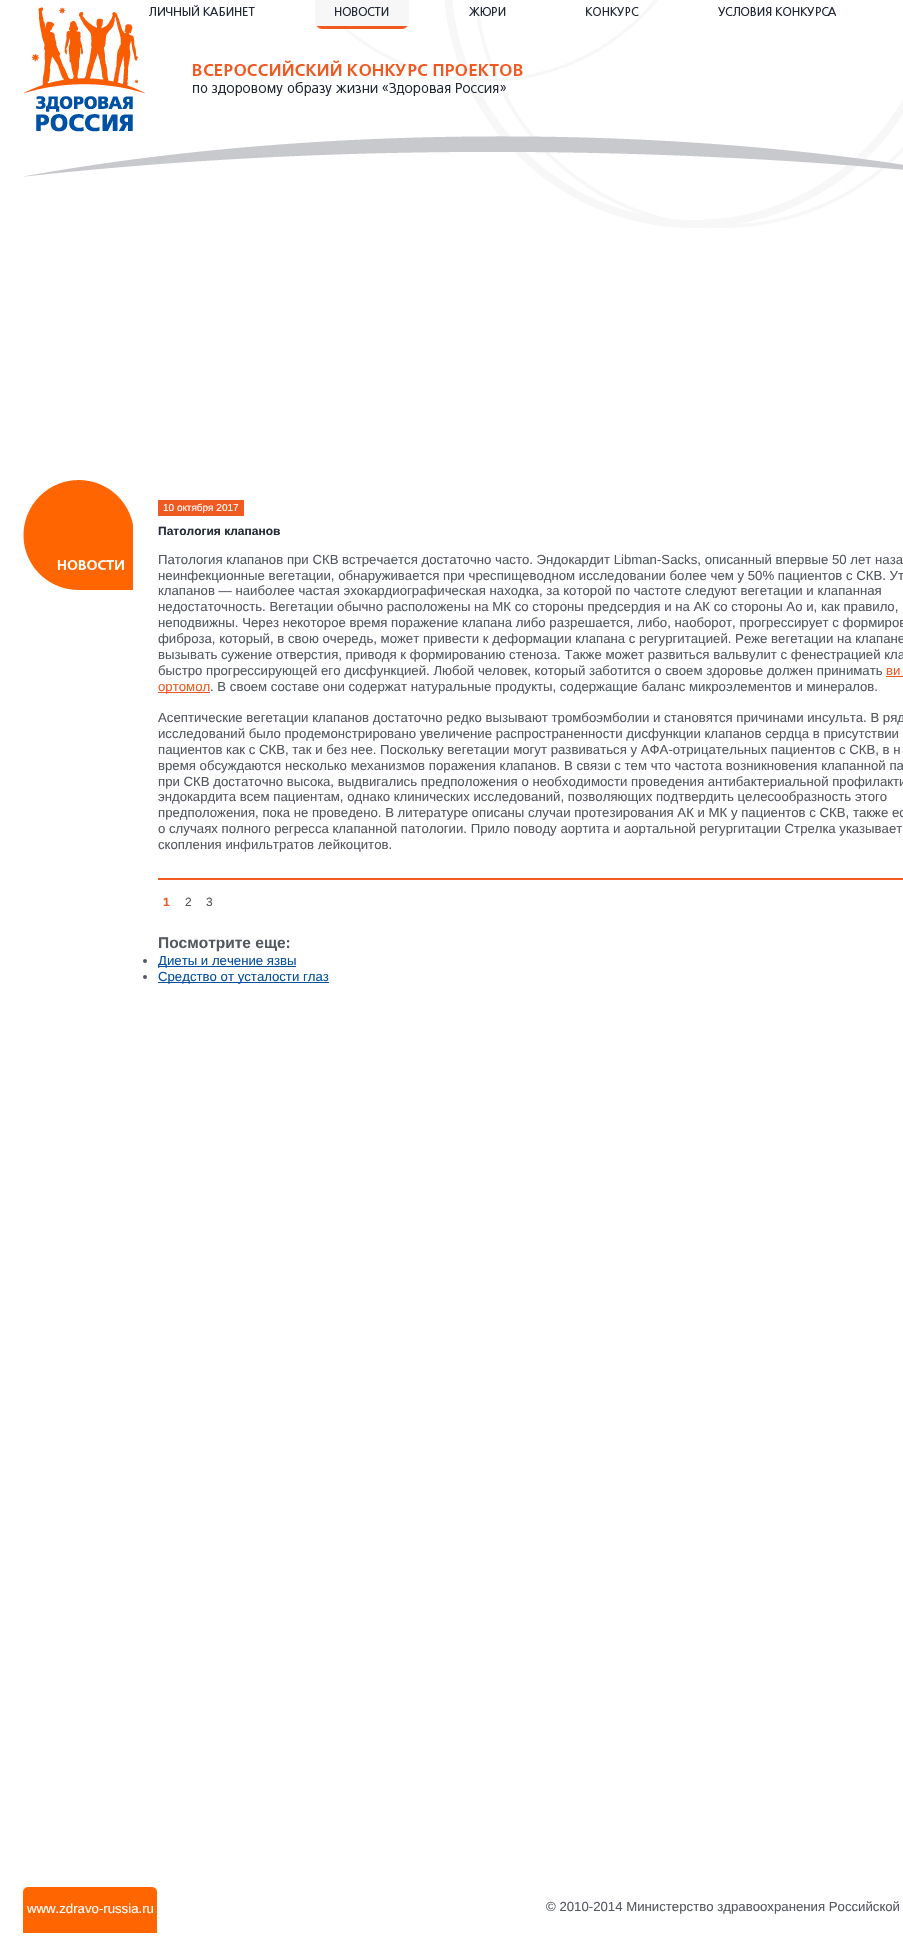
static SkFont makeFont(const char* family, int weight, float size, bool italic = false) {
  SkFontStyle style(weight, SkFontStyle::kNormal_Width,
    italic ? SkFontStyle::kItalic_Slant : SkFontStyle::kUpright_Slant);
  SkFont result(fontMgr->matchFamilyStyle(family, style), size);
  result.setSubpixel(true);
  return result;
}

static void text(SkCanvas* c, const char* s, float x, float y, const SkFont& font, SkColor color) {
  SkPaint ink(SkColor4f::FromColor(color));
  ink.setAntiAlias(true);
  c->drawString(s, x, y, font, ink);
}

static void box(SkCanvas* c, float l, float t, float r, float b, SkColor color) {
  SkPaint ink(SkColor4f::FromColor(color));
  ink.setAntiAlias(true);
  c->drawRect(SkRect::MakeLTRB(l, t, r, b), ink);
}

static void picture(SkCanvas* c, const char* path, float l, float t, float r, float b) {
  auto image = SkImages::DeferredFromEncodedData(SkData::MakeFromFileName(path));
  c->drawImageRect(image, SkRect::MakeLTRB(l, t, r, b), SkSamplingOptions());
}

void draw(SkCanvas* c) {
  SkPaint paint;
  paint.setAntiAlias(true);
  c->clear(0xffffffff);
  picture(c, "img_01.png", 24, 0, 903, 228);
  picture(c, "img_02.png", 23, 7, 145, 132);
  picture(c, "img_03.png", 149, 5, 255, 16);
  picture(c, "img_04.png", 315, 0, 409, 29);
  picture(c, "img_05.png", 335, 7, 389, 16);
  picture(c, "img_06.png", 469, 7, 506, 16);
  picture(c, "img_07.png", 586, 7, 639, 16);
  picture(c, "img_08.png", 718, 7, 837, 16);
  picture(c, "img_09.png", 193, 60, 523, 96);
  picture(c, "img_10.png", 23, 480, 133, 590);
  box(c, 158, 500, 244, 516, 0xfff15922);
  SkFont face1 = makeFont("Liberation Sans", 400, 10);
  text(c, "10 октября 2017", 163, 511, face1, 0xffffffff);
  SkFont face2 = makeFont("Liberation Sans", 700, 12);
  text(c, "Патология клапанов", 158, 535, face2, 0xff252a37);
  SkFont face3 = makeFont("Liberation Sans", 400, 13.2f);
  text(c, "Патология клапанов при СКВ встречается достаточно часто. Эндокардит Libman-Sacks, описанный впервые 50 лет наза", 158, 564, face3, 0xff545861);
  text(c, "неинфекционные вегетации, обнаруживается при чреспищеводном исследовании более чем у 50% пациентов с СКВ. Ут", 158, 580, face3, 0xff545861);
  text(c, "клапанов — наиболее частая эхокардиографическая находка, за которой по частоте следуют вегетации и клапанная", 158, 595, face3, 0xff545861);
  text(c, "недостаточность. Вегетации обычно расположены на МК со стороны предсердия и на АК со стороны Ао и, как правило,", 158, 611, face3, 0xff545861);
  text(c, "неподвижны. Через некоторое время поражение клапана либо разрешается, либо, наоборот, прогрессирует с формиров", 158, 627, face3, 0xff545861);
  text(c, "фиброза, который, в свою очередь, может привести к деформации клапана с регургитацией. Реже вегетации на клапане", 158, 643, face3, 0xff545861);
  text(c, "вызывать сужение отверстия, приводя к формированию стеноза. Также может развиться вальвулит с фенестрацией кла", 158, 659, face3, 0xff545861);
  text(c, "быстро прогрессирующей его дисфункцией. Любой человек, который заботится о своем здоровье должен принимать", 158, 675, face3, 0xff545861);
  text(c, "ви", 886, 675, face3, 0xfff05a22);
  box(c, 886, 676, 903, 677, 0xfff05a22);
  box(c, 158, 692, 210, 693, 0xfff05a22);
  text(c, "ортомол", 158, 691, face3, 0xfff05a22);
  text(c, ". В своем составе они содержат натуральные продукты, содержащие баланс микроэлементов и минералов.", 210, 691, face3, 0xff545861);
  text(c, "Асептические вегетации клапанов достаточно редко вызывают тромбоэмболии и становятся причинами инсульта. В ряд", 158, 722, face3, 0xff545861);
  text(c, "исследований было продемонстрировано увеличение распространенности дисфункции клапанов сердца в присутствии", 158, 738, face3, 0xff545861);
  text(c, "пациентов как с СКВ, так и без нее. Поскольку вегетации могут развиваться у АФА-отрицательных пациентов с СКВ, в н", 158, 754, face3, 0xff545861);
  text(c, "время обсуждаются несколько механизмов поражения клапанов. В связи с тем что частота возникновения клапанной па", 158, 770, face3, 0xff545861);
  text(c, "при СКВ достаточно высока, выдвигались предположения о необходимости проведения антибактериальной профилакти", 158, 786, face3, 0xff545861);
  text(c, "эндокардита всем пациентам, однако клинических исследований, позволяющих подтвердить целесообразность этого", 158, 801, face3, 0xff545861);
  text(c, "предположения, пока не проведено. В литературе описаны случаи протезирования АК и МК у пациентов с СКВ, также ес", 158, 817, face3, 0xff545861);
  text(c, "о случаях полного регресса клапанной патологии. Прило поводу аортита и аортальной регургитации Стрелка указывает", 158, 833, face3, 0xff545861);
  text(c, "скопления инфильтратов лейкоцитов.", 158, 849, face3, 0xff545861);
  box(c, 158, 878, 903, 880, 0xfff15922);
  text(c, "1", 163, 906, face2, 0xfff05a22);
  SkFont face4 = makeFont("Liberation Sans", 400, 12);
  text(c, "2", 185, 906, face4, 0xff545861);
  text(c, "3", 206, 906, face4, 0xff545861);
  SkFont face5 = makeFont("Liberation Sans", 700, 15.5f);
  text(c, "Посмотрите еще:", 158, 948, face5, 0xff545861);
  paint.setColor(0xff545861);
  c->drawCircle(145, 961, 2, paint);
  box(c, 158, 966, 296, 967, 0xff08509f);
  text(c, "Диеты и лечение язвы", 158, 965, face3, 0xff08509f);
  c->drawCircle(145, 977, 2, paint);
  box(c, 158, 982, 329, 983, 0xff08509f);
  text(c, "Средство от усталости глаз", 158, 981, face3, 0xff08509f);
  picture(c, "img_11.png", 23, 1887, 157, 1933);
  text(c, "www.zdravo-russia.ru", 27, 1913, face3, 0xffffffff);
  text(c, "© 2010-2014 Министерство здравоохранения Российской", 546, 1911, face3, 0xff545861);
}
